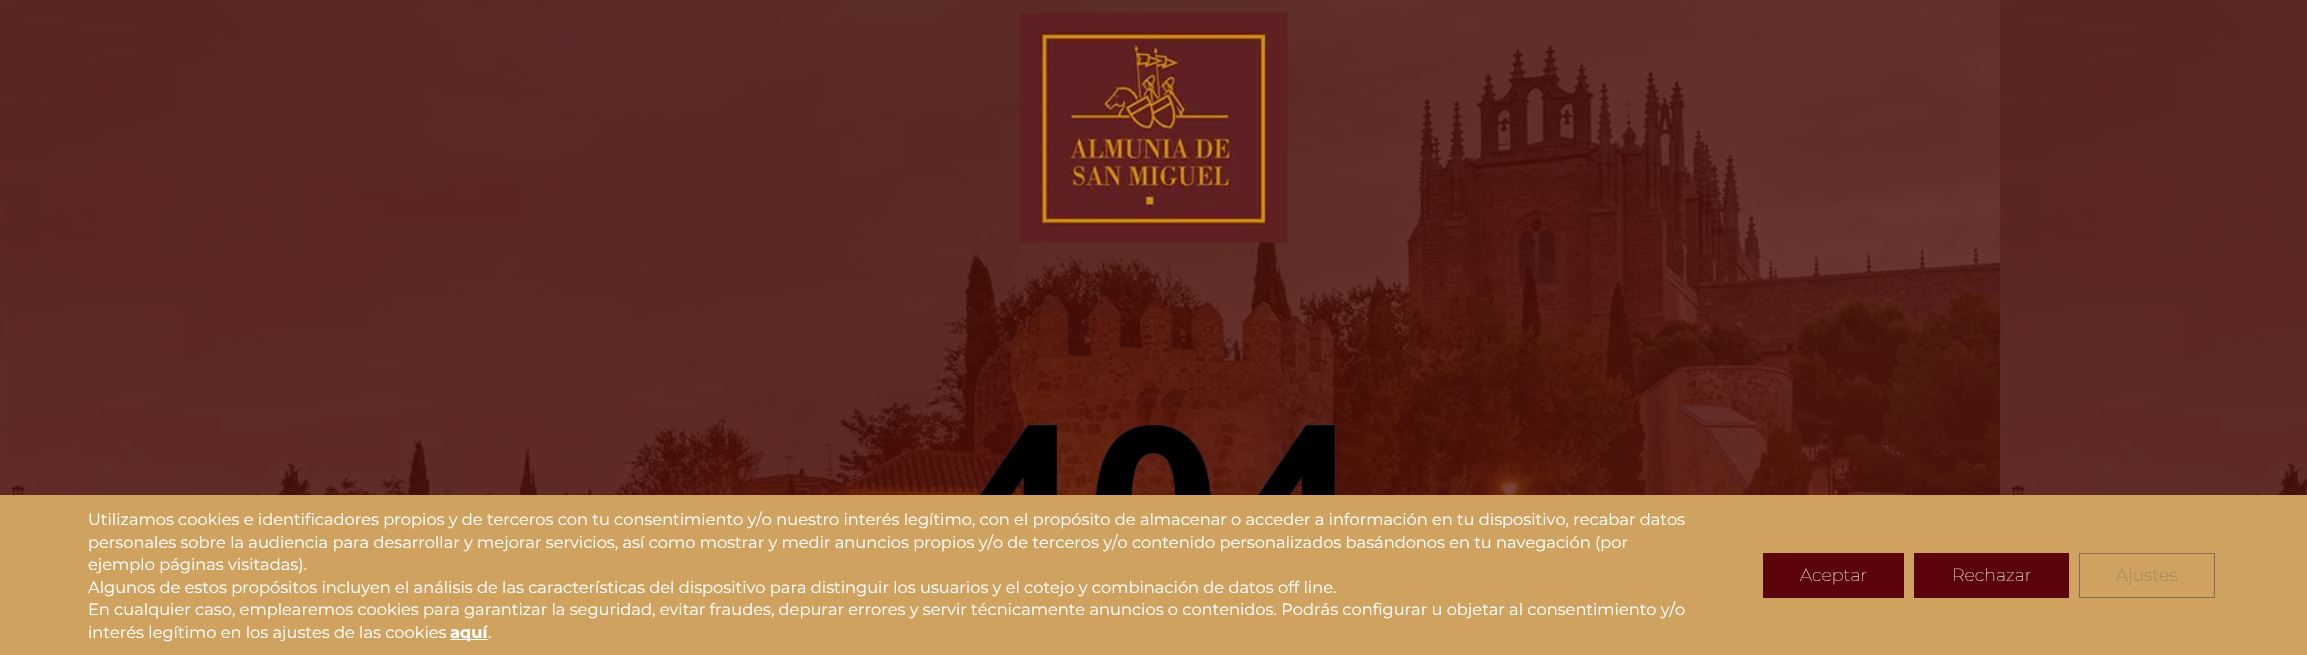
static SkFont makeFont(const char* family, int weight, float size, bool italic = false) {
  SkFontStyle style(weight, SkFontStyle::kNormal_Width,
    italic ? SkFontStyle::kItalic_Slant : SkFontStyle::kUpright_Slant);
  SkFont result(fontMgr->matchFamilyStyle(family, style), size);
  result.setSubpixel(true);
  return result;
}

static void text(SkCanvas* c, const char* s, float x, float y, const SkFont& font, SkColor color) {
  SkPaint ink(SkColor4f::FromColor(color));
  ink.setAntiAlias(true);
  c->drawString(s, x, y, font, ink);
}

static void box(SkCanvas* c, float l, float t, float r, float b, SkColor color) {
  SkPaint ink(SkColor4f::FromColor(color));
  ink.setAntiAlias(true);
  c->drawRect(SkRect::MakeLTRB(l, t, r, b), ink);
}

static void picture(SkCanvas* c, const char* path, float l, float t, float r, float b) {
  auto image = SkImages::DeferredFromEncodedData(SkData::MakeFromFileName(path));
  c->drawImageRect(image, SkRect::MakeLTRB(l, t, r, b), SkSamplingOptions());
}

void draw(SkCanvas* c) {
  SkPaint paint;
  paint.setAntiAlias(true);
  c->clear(0xffffffff);
  picture(c, "img_01.png", 0, 0, 2307, 495);
  picture(c, "img_02.png", 1020, 12, 1288, 243);
  picture(c, "img_03.png", 979, 424, 1336, 495);
  box(c, 0, 495, 2307, 655, 0xffcfa25f);
  SkFont face1 = makeFont("Montserrat", 400, 16.25f);
  text(c, "Utilizamos cookies e identificadores propios y de terceros con tu consentimiento y/o nuestro interés legítimo, con el propósito de almacenar o acceder a información en tu dispositivo, recabar datos", 88, 525, face1, 0xffffffff);
  text(c, "personales sobre la audiencia para desarrollar y mejorar servicios, así como mostrar y medir anuncios propios y/o de terceros y/o contenido personalizados basándonos en tu navegación (por", 88, 548, face1, 0xffffffff);
  text(c, "ejemplo páginas visitadas).", 88, 570, face1, 0xffffffff);
  text(c, "Algunos de estos propósitos incluyen el análisis de las características del dispositivo para distinguir los usuarios y el cotejo y combinación de datos off line.", 88, 593, face1, 0xffffffff);
  text(c, "En cualquier caso, emplearemos cookies para garantizar la seguridad, evitar fraudes, depurar errores y servir técnicamente anuncios o contenidos. Podrás configurar u objetar al consentimiento y/o", 88, 615, face1, 0xffffffff);
  text(c, "interés legítimo en los ajustes de las cookies", 88, 638, face1, 0xffffffff);
  box(c, 450, 639, 488, 640, 0xffffffff);
  SkFont face2 = makeFont("Montserrat", 700, 16.25f);
  text(c, "aquí", 450, 638, face2, 0xffffffff);
  text(c, ".", 488, 638, face1, 0xffffffff);
  box(c, 1763, 553, 1904, 598, 0xff5b040b);
  SkFont face3 = makeFont("Montserrat", 100, 17.5f);
  text(c, "Aceptar", 1800, 581, face3, 0xffffffff);
  box(c, 1914, 553, 2069, 598, 0xff5b040b);
  text(c, "Rechazar", 1952, 581, face3, 0xffffffff);
  paint.setStyle(SkPaint::kStroke_Style);
  paint.setStrokeWidth(1);
  paint.setColor(0xff7c6e59);
  c->drawRect(SkRect::MakeLTRB(2079.5f, 553.5f, 2214.5f, 597.5f), paint);
  text(c, "Ajustes", 2116, 581, face3, 0xff7c6e59);
}
